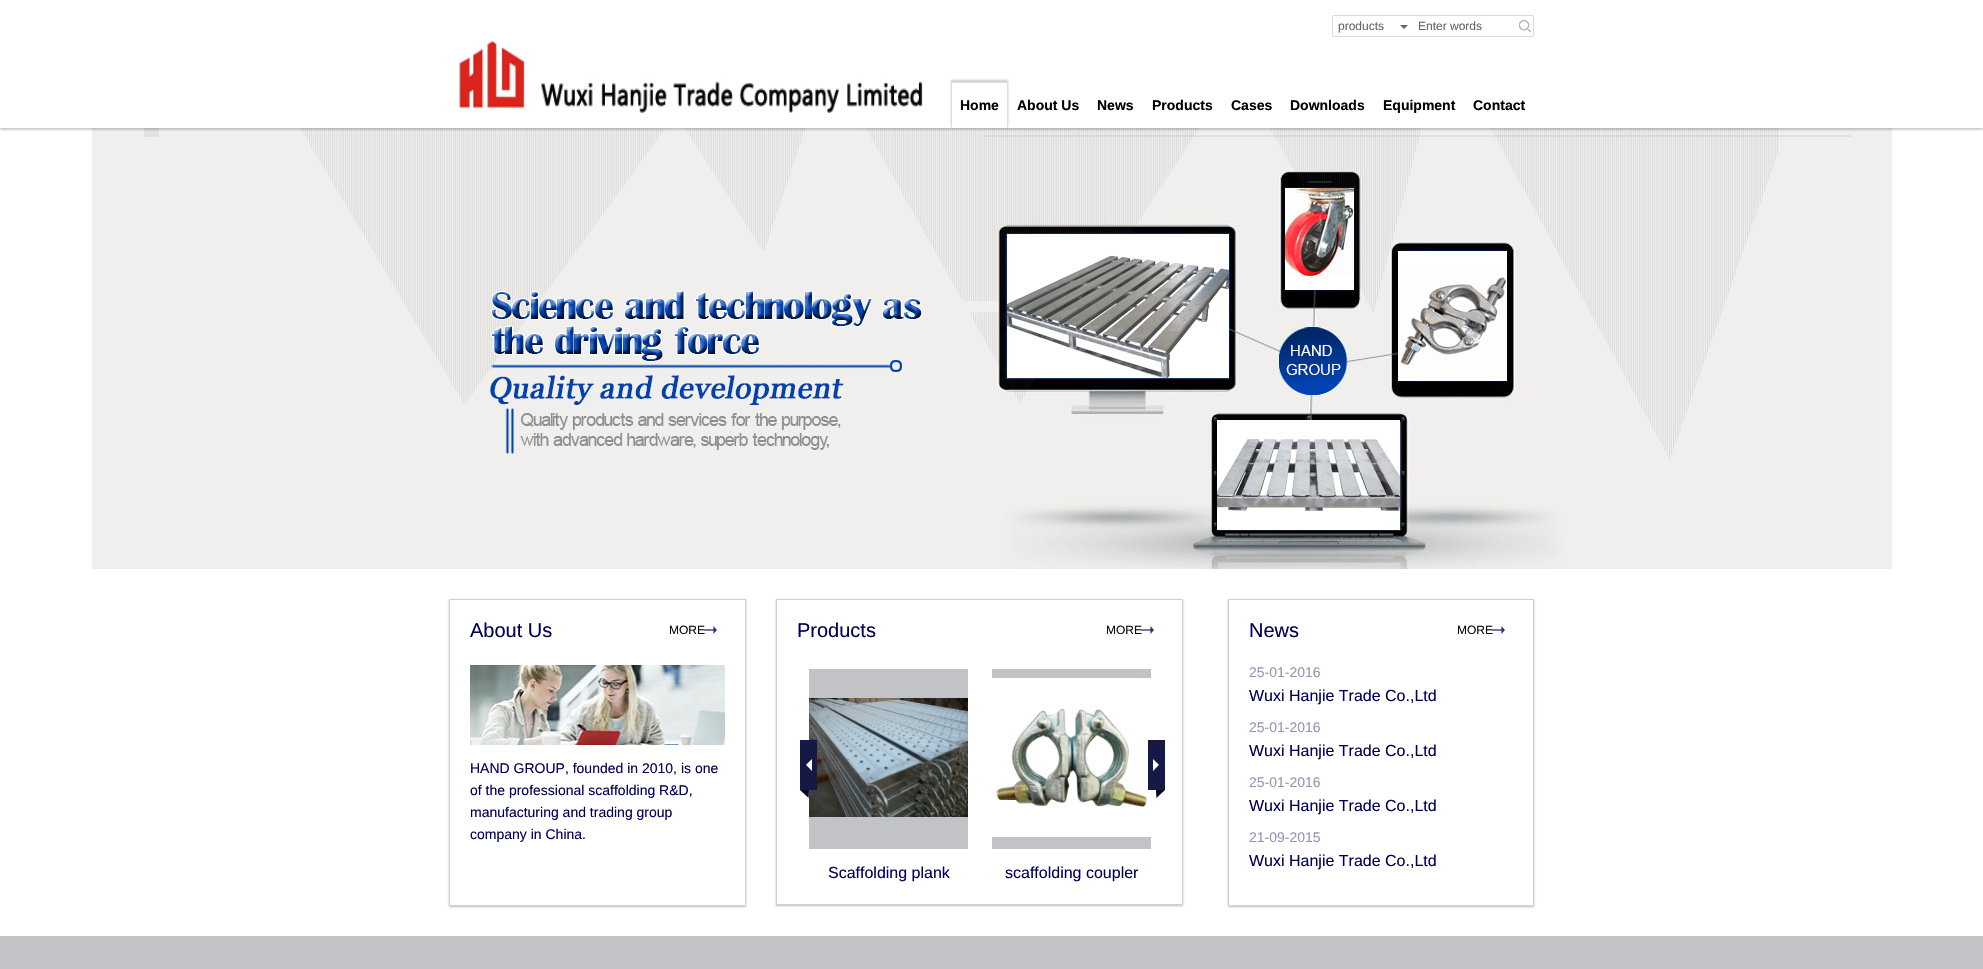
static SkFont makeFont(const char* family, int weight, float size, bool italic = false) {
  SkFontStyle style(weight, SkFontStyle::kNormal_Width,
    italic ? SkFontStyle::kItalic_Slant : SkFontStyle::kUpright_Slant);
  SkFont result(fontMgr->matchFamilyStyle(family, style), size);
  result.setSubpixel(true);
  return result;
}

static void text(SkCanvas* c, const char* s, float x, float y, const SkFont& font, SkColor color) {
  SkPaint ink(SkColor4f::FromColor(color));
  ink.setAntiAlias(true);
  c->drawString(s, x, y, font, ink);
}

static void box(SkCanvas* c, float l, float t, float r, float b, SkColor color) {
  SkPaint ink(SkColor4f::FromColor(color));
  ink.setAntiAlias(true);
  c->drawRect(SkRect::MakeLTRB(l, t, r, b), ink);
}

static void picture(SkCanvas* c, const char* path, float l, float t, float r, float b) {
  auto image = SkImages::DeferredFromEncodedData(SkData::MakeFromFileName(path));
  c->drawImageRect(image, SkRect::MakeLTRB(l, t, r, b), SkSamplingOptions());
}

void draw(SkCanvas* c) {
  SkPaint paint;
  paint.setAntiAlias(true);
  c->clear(0xffffffff);
  picture(c, "img_03.png", 92, 128, 1892, 569);
  c->save();
  c->clipRect(SkRect::MakeLTRB(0, 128, 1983, 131));
  paint.setColor(0x33000000);
  paint.setMaskFilter(SkMaskFilter::MakeBlur(kNormal_SkBlurStyle, 1));
  c->drawRect(SkRect::MakeLTRB(0, 2, 1983, 130), paint);
  paint.setMaskFilter(nullptr);
  c->restore();
  paint.setStyle(SkPaint::kStroke_Style);
  paint.setStrokeWidth(1);
  paint.setColor(0xffd9d9d9);
  c->drawRoundRect(SkRect::MakeLTRB(1332.5f, 15.5f, 1533.5f, 36.5f), 1.5f, 1.5f, paint);
  SkFont face1 = makeFont("Liberation Sans", 400, 12);
  text(c, "products", 1338, 30, face1, 0xff666666);
  paint.setStyle(SkPaint::kFill_Style);
  paint.setColor(0xff666666);
  c->drawPath(SkPathBuilder().moveTo(1400, 25).lineTo(1408, 25).lineTo(1404, 29).close().detach(), paint);
  text(c, "Enter words", 1418, 30, face1, 0xff666666);
  picture(c, "img_01.png", 1519, 20, 1531, 32);
  picture(c, "img_02.png", 459, 41, 923, 113);
  c->save();
  c->clipPath(SkPathBuilder(SkPathFillType::kEvenOdd).moveTo(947, 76).lineTo(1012, 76).lineTo(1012, 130).lineTo(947, 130).close().moveTo(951, 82).lineTo(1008, 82).lineTo(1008, 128).lineTo(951, 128).close().detach(), true);
  paint.setColor(0x33000000);
  paint.setMaskFilter(SkMaskFilter::MakeBlur(kNormal_SkBlurStyle, 1));
  c->drawRect(SkRect::MakeLTRB(951, 80, 1008, 126), paint);
  paint.setMaskFilter(nullptr);
  c->restore();
  box(c, 951, 82, 1008, 83, 0xffdfe0e3);
  box(c, 1007, 82, 1008, 128, 0xffdfe0e3);
  box(c, 951, 82, 952, 128, 0xffdfe0e3);
  SkFont face2 = makeFont("Liberation Sans", 700, 14);
  text(c, "Home", 960, 110, face2, 0xff000000);
  text(c, "About Us", 1017, 110, face2, 0xff000000);
  text(c, "News", 1097, 110, face2, 0xff000000);
  text(c, "Products", 1152, 110, face2, 0xff000000);
  text(c, "Cases", 1231, 110, face2, 0xff000000);
  text(c, "Downloads", 1290, 110, face2, 0xff000000);
  text(c, "Equipment", 1383, 110, face2, 0xff000000);
  text(c, "Contact", 1473, 110, face2, 0xff000000);
  c->save();
  c->clipPath(SkPathBuilder(SkPathFillType::kEvenOdd).moveTo(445, 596).lineTo(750, 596).lineTo(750, 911).lineTo(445, 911).close().moveTo(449, 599).lineTo(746, 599).lineTo(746, 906).lineTo(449, 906).close().detach(), true);
  paint.setColor(0x40000000);
  paint.setMaskFilter(SkMaskFilter::MakeBlur(kNormal_SkBlurStyle, 1));
  c->drawRect(SkRect::MakeLTRB(449, 600, 746, 907), paint);
  paint.setMaskFilter(nullptr);
  c->restore();
  paint.setStyle(SkPaint::kStroke_Style);
  paint.setColor(0xffd1d1d1);
  c->drawRect(SkRect::MakeLTRB(449.5f, 599.5f, 745.5f, 905.5f), paint);
  SkFont face3 = makeFont("Liberation Sans", 400, 20);
  text(c, "About Us", 470, 637, face3, 0xff000058);
  picture(c, "img_04.png", 704, 626, 717, 634);
  text(c, "MORE", 669, 634, face1, 0xff100b08);
  picture(c, "img_05.png", 470, 665, 725, 745);
  SkFont face4 = makeFont("Liberation Sans", 400, 14);
  text(c, "HAND GROUP, founded in 2010, is one", 470, 773, face4, 0xff000058);
  text(c, "of the professional scaffolding R&D,", 470, 795, face4, 0xff000058);
  text(c, "manufacturing and trading group", 470, 817, face4, 0xff000058);
  text(c, "company in China.", 470, 839, face4, 0xff000058);
  c->save();
  c->clipPath(SkPathBuilder(SkPathFillType::kEvenOdd).moveTo(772, 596).lineTo(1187, 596).lineTo(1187, 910).lineTo(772, 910).close().moveTo(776, 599).lineTo(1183, 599).lineTo(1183, 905).lineTo(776, 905).close().detach(), true);
  paint.setStyle(SkPaint::kFill_Style);
  paint.setColor(0x40000000);
  paint.setMaskFilter(SkMaskFilter::MakeBlur(kNormal_SkBlurStyle, 1));
  c->drawRect(SkRect::MakeLTRB(776, 600, 1183, 906), paint);
  paint.setMaskFilter(nullptr);
  c->restore();
  paint.setStyle(SkPaint::kStroke_Style);
  paint.setColor(0xffd1d1d1);
  c->drawRect(SkRect::MakeLTRB(776.5f, 599.5f, 1182.5f, 904.5f), paint);
  text(c, "Products", 797, 637, face3, 0xff000058);
  picture(c, "img_04.png", 1141, 626, 1154, 634);
  text(c, "MORE", 1106, 634, face1, 0xff100b08);
  box(c, 809, 669, 968, 849, 0xffc2c3c7);
  picture(c, "img_08.png", 809, 698, 968, 817);
  picture(c, "img_06.png", 800, 740, 817, 798);
  box(c, 992, 669, 1151, 849, 0xffc2c3c7);
  picture(c, "img_09.png", 992, 678, 1151, 837);
  picture(c, "img_07.png", 1148, 740, 1165, 798);
  SkFont face5 = makeFont("Liberation Sans", 400, 16);
  text(c, "Scaffolding plank", 828, 878, face5, 0xff000058);
  text(c, "scaffolding coupler", 1005, 878, face5, 0xff000058);
  c->save();
  c->clipPath(SkPathBuilder(SkPathFillType::kEvenOdd).moveTo(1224, 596).lineTo(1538, 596).lineTo(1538, 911).lineTo(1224, 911).close().moveTo(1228, 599).lineTo(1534, 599).lineTo(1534, 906).lineTo(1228, 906).close().detach(), true);
  paint.setStyle(SkPaint::kFill_Style);
  paint.setColor(0x40000000);
  paint.setMaskFilter(SkMaskFilter::MakeBlur(kNormal_SkBlurStyle, 1));
  c->drawRect(SkRect::MakeLTRB(1228, 600, 1534, 907), paint);
  paint.setMaskFilter(nullptr);
  c->restore();
  paint.setStyle(SkPaint::kStroke_Style);
  paint.setColor(0xffd1d1d1);
  c->drawRect(SkRect::MakeLTRB(1228.5f, 599.5f, 1533.5f, 905.5f), paint);
  text(c, "News", 1249, 637, face3, 0xff000058);
  picture(c, "img_04.png", 1492, 626, 1505, 634);
  text(c, "MORE", 1457, 634, face1, 0xff100b08);
  text(c, "25-01-2016", 1249, 677, face4, 0xff9595b5);
  text(c, "Wuxi Hanjie Trade Co.,Ltd", 1249, 701, face5, 0xff000058);
  text(c, "25-01-2016", 1249, 732, face4, 0xff9595b5);
  text(c, "Wuxi Hanjie Trade Co.,Ltd", 1249, 756, face5, 0xff000058);
  text(c, "25-01-2016", 1249, 787, face4, 0xff9595b5);
  text(c, "Wuxi Hanjie Trade Co.,Ltd", 1249, 811, face5, 0xff000058);
  text(c, "21-09-2015", 1249, 842, face4, 0xff9595b5);
  text(c, "Wuxi Hanjie Trade Co.,Ltd", 1249, 866, face5, 0xff000058);
  box(c, 0, 936, 1983, 969, 0xffc2c3c7);
}
